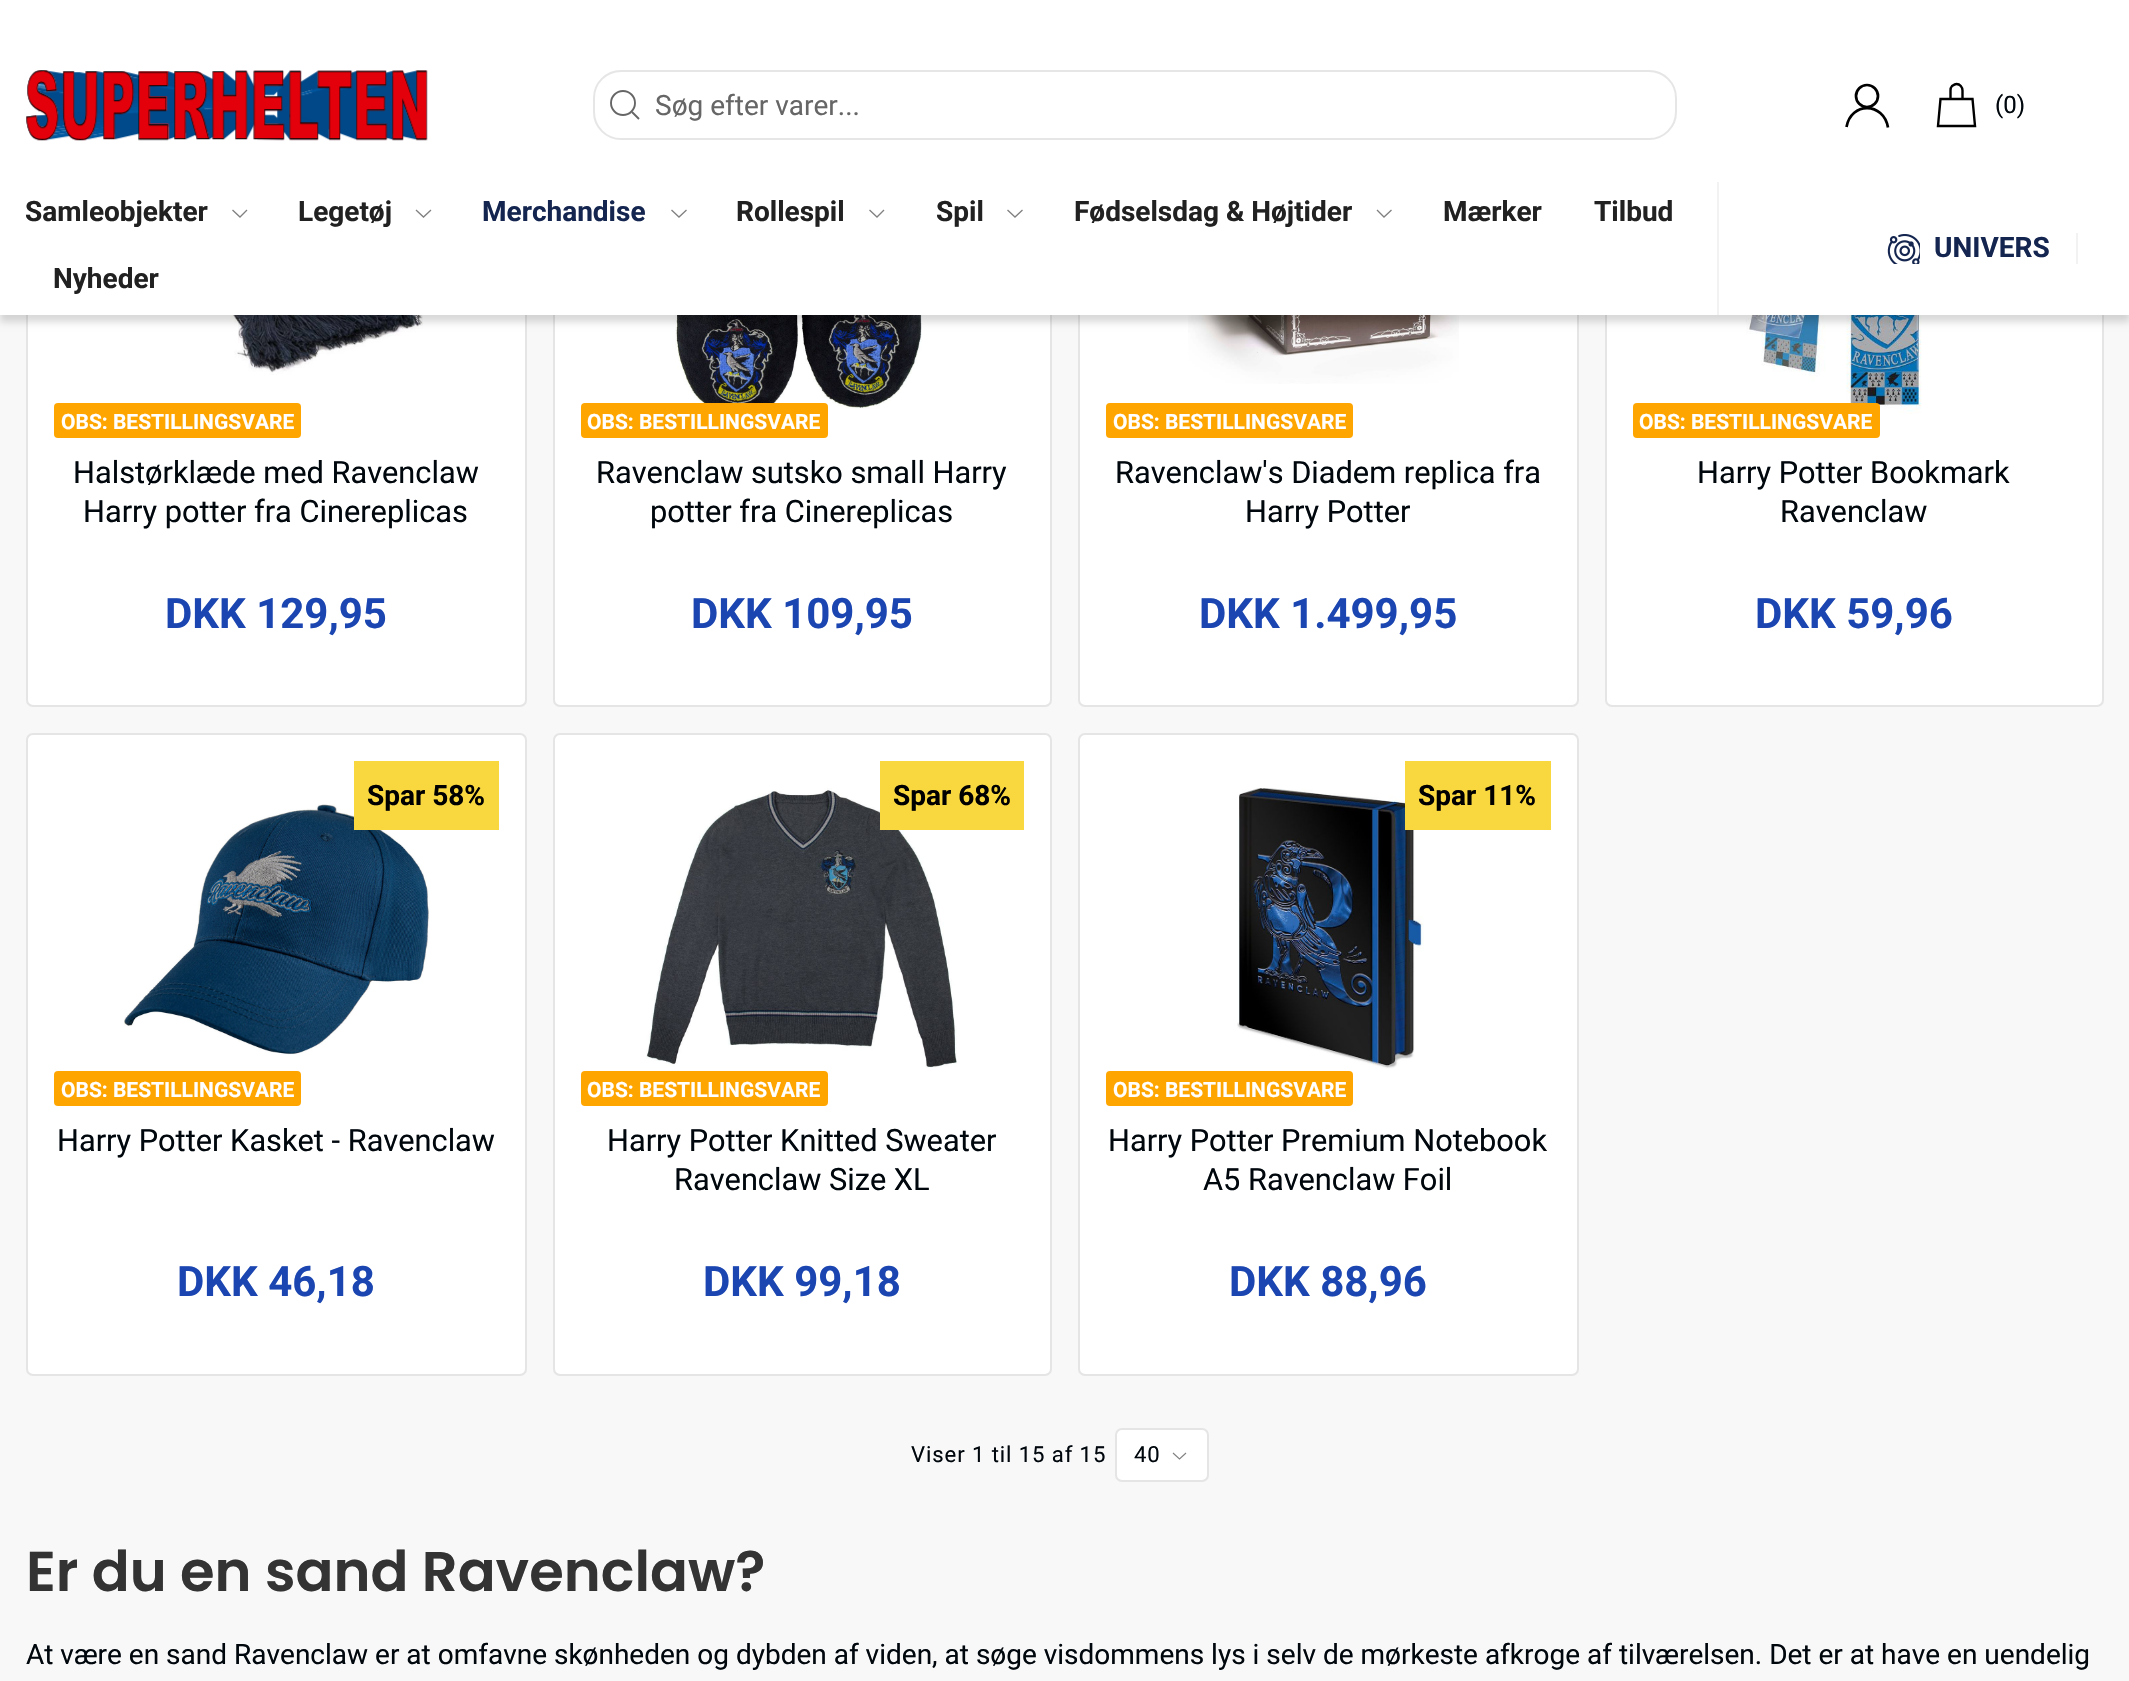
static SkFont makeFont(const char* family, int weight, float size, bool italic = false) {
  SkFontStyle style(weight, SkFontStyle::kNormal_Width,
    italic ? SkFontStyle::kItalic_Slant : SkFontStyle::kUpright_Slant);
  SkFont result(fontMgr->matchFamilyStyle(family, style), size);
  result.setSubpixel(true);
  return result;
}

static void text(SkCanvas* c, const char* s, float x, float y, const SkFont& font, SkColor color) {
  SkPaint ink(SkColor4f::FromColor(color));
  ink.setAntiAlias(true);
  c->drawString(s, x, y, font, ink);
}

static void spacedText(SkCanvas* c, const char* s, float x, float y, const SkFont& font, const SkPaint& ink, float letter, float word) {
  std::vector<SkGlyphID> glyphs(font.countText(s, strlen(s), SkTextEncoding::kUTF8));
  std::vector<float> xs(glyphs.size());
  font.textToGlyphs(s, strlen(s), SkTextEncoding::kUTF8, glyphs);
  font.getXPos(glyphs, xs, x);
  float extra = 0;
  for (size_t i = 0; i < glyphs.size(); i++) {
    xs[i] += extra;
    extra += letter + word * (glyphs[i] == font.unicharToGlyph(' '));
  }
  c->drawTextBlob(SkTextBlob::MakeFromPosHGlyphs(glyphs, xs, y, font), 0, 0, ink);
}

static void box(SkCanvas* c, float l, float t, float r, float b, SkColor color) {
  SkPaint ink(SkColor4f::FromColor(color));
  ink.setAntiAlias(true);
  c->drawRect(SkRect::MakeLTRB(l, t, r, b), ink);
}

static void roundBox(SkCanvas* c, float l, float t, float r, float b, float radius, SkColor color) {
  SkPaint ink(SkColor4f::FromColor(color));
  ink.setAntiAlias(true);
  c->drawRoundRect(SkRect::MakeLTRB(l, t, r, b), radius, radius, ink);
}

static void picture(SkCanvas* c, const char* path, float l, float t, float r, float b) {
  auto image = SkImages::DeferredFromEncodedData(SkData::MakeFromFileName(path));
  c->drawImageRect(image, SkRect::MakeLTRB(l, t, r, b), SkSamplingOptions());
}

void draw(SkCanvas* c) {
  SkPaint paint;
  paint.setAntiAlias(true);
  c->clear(0xfff8f8f9);
  roundBox(c, 26, 67, 527, 707, 7, 0xffffffff);
  paint.setStyle(SkPaint::kStroke_Style);
  paint.setStrokeWidth(2);
  paint.setColor(0x1a000000);
  c->drawRoundRect(SkRect::MakeLTRB(27, 68, 526, 706), 6, 6, paint);
  picture(c, "img_03.png", 122, 315, 423, 375);
  roundBox(c, 553, 67, 1052, 707, 7, 0xffffffff);
  c->drawRoundRect(SkRect::MakeLTRB(554, 68, 1051, 706), 6, 6, paint);
  picture(c, "img_04.png", 672, 315, 922, 417);
  roundBox(c, 1078, 67, 1579, 707, 7, 0xffffffff);
  c->drawRoundRect(SkRect::MakeLTRB(1079, 68, 1578, 706), 6, 6, paint);
  picture(c, "img_05.png", 1188, 315, 1459, 384);
  roundBox(c, 1605, 67, 2104, 707, 7, 0xffffffff);
  c->drawRoundRect(SkRect::MakeLTRB(1606, 68, 2103, 706), 6, 6, paint);
  picture(c, "img_06.png", 1746, 315, 1922, 414);
  paint.setStyle(SkPaint::kFill_Style);
  paint.setColor(0x26000000);
  paint.setMaskFilter(SkMaskFilter::MakeBlur(kNormal_SkBlurStyle, 3.5f));
  c->drawRect(SkRect::MakeLTRB(0, 189, 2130, 322), paint);
  paint.setMaskFilter(nullptr);
  box(c, 0, 0, 2129, 315, 0xffffffff);
  picture(c, "img_01.png", 26, 70, 428, 141);
  paint.setStyle(SkPaint::kStroke_Style);
  paint.setColor(0xffe6e6e6);
  c->drawRoundRect(SkRect::MakeLTRB(594, 71, 1676, 139), 27, 27, paint);
  paint.setStrokeWidth(1.9f);
  paint.setColor(0xff666666);
  c->drawCircle(623, 103, 12, paint);
  c->drawPath(SkPathBuilder().moveTo(632, 112).lineTo(639, 119).close().detach(), paint);
  SkFont face1 = makeFont("Roboto", 400, 28);
  text(c, "Søg efter varer...", 655, 115, face1, 0xff666666);
  paint.setStrokeWidth(2.7f);
  paint.setColor(0xff000000);
  c->drawCircle(1867, 96, 11, paint);
  c->drawPath(SkPathBuilder().moveTo(1846.5f, 127).cubicTo(1851, 101.5f, 1883.5f, 102, 1888, 127.5f).detach(), paint);
  paint.setStrokeWidth(2.4f);
  c->drawPath(SkPathBuilder().moveTo(1950.5f, 99).lineTo(1950.5f, 90.5f).cubicTo(1950.5f, 88.5f, 1951, 87, 1952, 86).cubicTo(1953.5f, 85, 1955, 84, 1956.5f, 84).cubicTo(1960, 84, 1962.5f, 87, 1962.5f, 90.5f).lineTo(1962.5f, 99).moveTo(1972.5f, 99).lineTo(1940.5f, 99).lineTo(1938, 126).lineTo(1975, 126).close().detach(), paint);
  SkFont face2 = makeFont("Roboto", 400, 24);
  text(c, "(0)", 1995, 113, face2, 0xff00070d);
  SkFont face3 = makeFont("Roboto", 700, 28);
  text(c, "Samleobjekter", 25, 221, face3, 0xff212121);
  paint.setStrokeWidth(1.3f);
  paint.setColor(0xff808080);
  c->drawPath(SkPathBuilder().moveTo(247, 210).lineTo(240, 217).lineTo(232.5f, 210).detach(), paint);
  text(c, "Legetøj", 298, 221, face3, 0xff212121);
  c->drawPath(SkPathBuilder().moveTo(431, 210).lineTo(423.5f, 217).lineTo(416, 210).detach(), paint);
  text(c, "Merchandise", 482, 221, face3, 0xff14254f);
  c->drawPath(SkPathBuilder().moveTo(686.5f, 210).lineTo(679, 217).lineTo(671.5f, 210).detach(), paint);
  text(c, "Rollespil", 736, 221, face3, 0xff212121);
  c->drawPath(SkPathBuilder().moveTo(884, 210).lineTo(877, 217).lineTo(869.5f, 210).detach(), paint);
  text(c, "Spil", 936, 221, face3, 0xff212121);
  c->drawPath(SkPathBuilder().moveTo(1022.5f, 210).lineTo(1015, 217).lineTo(1007.5f, 210).detach(), paint);
  text(c, "Fødselsdag & Højtider", 1074, 221, face3, 0xff212121);
  c->drawPath(SkPathBuilder().moveTo(1391.5f, 210).lineTo(1384, 217).lineTo(1377, 210).detach(), paint);
  text(c, "Mærker", 1443, 221, face3, 0xff212121);
  text(c, "Tilbud", 1594, 221, face3, 0xff212121);
  text(c, "Nyheder", 53, 288, face3, 0xff212121);
  box(c, 1717, 182, 1719, 315, 0xfff2f2f2);
  box(c, 2076, 233, 2078, 264, 0xfff2f2f2);
  picture(c, "img_02.png", 1887, 234, 1920, 264);
  text(c, "UNIVERS", 1934, 257, face3, 0xff14254f);
  roundBox(c, 54, 403, 301, 438, 4, 0xffffa500);
  SkFont face4 = makeFont("Roboto", 700, 21);
  text(c, "OBS: BESTILLINGSVARE", 61, 429, face4, 0xffffffff);
  SkFont face5 = makeFont("Roboto", 400, 30.75f);
  text(c, "Halstørklæde med Ravenclaw", 73, 483, face5, 0xff00070d);
  text(c, "Harry potter fra Cinereplicas", 83, 522, face5, 0xff00070d);
  SkFont face6 = makeFont("Roboto", 700, 42);
  text(c, "DKK 129,95", 165, 628, face6, 0xff1b46b1);
  roundBox(c, 581, 403, 828, 438, 4, 0xffffa500);
  text(c, "OBS: BESTILLINGSVARE", 587, 429, face4, 0xffffffff);
  text(c, "Ravenclaw sutsko small Harry", 596, 483, face5, 0xff00070d);
  text(c, "potter fra Cinereplicas", 650, 522, face5, 0xff00070d);
  text(c, "DKK 109,95", 691, 628, face6, 0xff1b46b1);
  roundBox(c, 1106, 403, 1353, 438, 4, 0xffffa500);
  text(c, "OBS: BESTILLINGSVARE", 1113, 429, face4, 0xffffffff);
  text(c, "Ravenclaw's Diadem replica fra", 1115, 483, face5, 0xff00070d);
  text(c, "Harry Potter", 1245, 522, face5, 0xff00070d);
  text(c, "DKK 1.499,95", 1199, 628, face6, 0xff1b46b1);
  roundBox(c, 1633, 403, 1880, 438, 4, 0xffffa500);
  text(c, "OBS: BESTILLINGSVARE", 1639, 429, face4, 0xffffffff);
  text(c, "Harry Potter Bookmark", 1697, 483, face5, 0xff00070d);
  text(c, "Ravenclaw", 1780, 522, face5, 0xff00070d);
  text(c, "DKK 59,96", 1755, 628, face6, 0xff1b46b1);
  roundBox(c, 26, 733, 527, 1376, 7, 0xffffffff);
  paint.setStrokeWidth(2);
  paint.setColor(0x1a000000);
  c->drawRoundRect(SkRect::MakeLTRB(27, 734, 526, 1375), 6, 6, paint);
  picture(c, "img_07.png", 124, 804, 429, 1055);
  box(c, 354, 761, 499, 830, 0xfff8d73f);
  text(c, "Spar 58%", 367, 805, face3, 0xff000000);
  roundBox(c, 54, 1071, 301, 1106, 4, 0xffffa500);
  text(c, "OBS: BESTILLINGSVARE", 61, 1097, face4, 0xffffffff);
  text(c, "Harry Potter Kasket - Ravenclaw", 57, 1151, face5, 0xff00070d);
  text(c, "DKK 46,18", 177, 1296, face6, 0xff1b46b1);
  roundBox(c, 553, 733, 1052, 1376, 7, 0xffffffff);
  c->drawRoundRect(SkRect::MakeLTRB(554, 734, 1051, 1375), 6, 6, paint);
  picture(c, "img_08.png", 646, 788, 957, 1068);
  box(c, 880, 761, 1024, 830, 0xfff8d73f);
  text(c, "Spar 68%", 893, 805, face3, 0xff000000);
  roundBox(c, 581, 1071, 828, 1106, 4, 0xffffa500);
  text(c, "OBS: BESTILLINGSVARE", 587, 1097, face4, 0xffffffff);
  text(c, "Harry Potter Knitted Sweater", 607, 1151, face5, 0xff00070d);
  text(c, "Ravenclaw Size XL", 674, 1190, face5, 0xff00070d);
  text(c, "DKK 99,18", 703, 1296, face6, 0xff1b46b1);
  roundBox(c, 1078, 733, 1579, 1376, 7, 0xffffffff);
  c->drawRoundRect(SkRect::MakeLTRB(1079, 734, 1578, 1375), 6, 6, paint);
  picture(c, "img_09.png", 1237, 788, 1424, 1069);
  box(c, 1405, 761, 1551, 830, 0xfff8d73f);
  text(c, "Spar 11%", 1418, 805, face3, 0xff000000);
  roundBox(c, 1106, 1071, 1353, 1106, 4, 0xffffa500);
  text(c, "OBS: BESTILLINGSVARE", 1113, 1097, face4, 0xffffffff);
  text(c, "Harry Potter Premium Notebook", 1108, 1151, face5, 0xff00070d);
  text(c, "A5 Ravenclaw Foil", 1203, 1190, face5, 0xff00070d);
  text(c, "DKK 88,96", 1229, 1296, face6, 0xff1b46b1);
  SkFont face7 = makeFont("Roboto", 400, 22.1f);
  paint.setStyle(SkPaint::kFill_Style);
  paint.setColor(0xff00070d);
  spacedText(c, "Viser 1 til 15 af 15", 911, 1462, face7, paint, 0.9f, 0);
  roundBox(c, 1115, 1428, 1209, 1482, 7, 0xffffffff);
  paint.setStyle(SkPaint::kStroke_Style);
  paint.setColor(0x1a000000);
  c->drawRoundRect(SkRect::MakeLTRB(1116, 1429, 1208, 1481), 6, 6, paint);
  paint.setStyle(SkPaint::kFill_Style);
  paint.setColor(0xff00070d);
  spacedText(c, "40", 1134, 1462, face7, paint, 0.9f, 0);
  paint.setStyle(SkPaint::kStroke_Style);
  paint.setStrokeWidth(1.1f);
  paint.setColor(0xff808080);
  c->drawPath(SkPathBuilder().moveTo(1186, 1453).lineTo(1179.5f, 1459).lineTo(1173, 1453).detach(), paint);
  SkFont face8 = makeFont("Poppins", 600, 56);
  text(c, "Er du en sand Ravenclaw?", 26, 1591, face8, 0xff333333);
  text(c, "At være en sand Ravenclaw er at omfavne skønheden og dybden af viden, at søge visdommens lys i selv de mørkeste afkroge af tilværelsen. Det er at have en uendelig", 26, 1664, face1, 0xff00070d);
}
